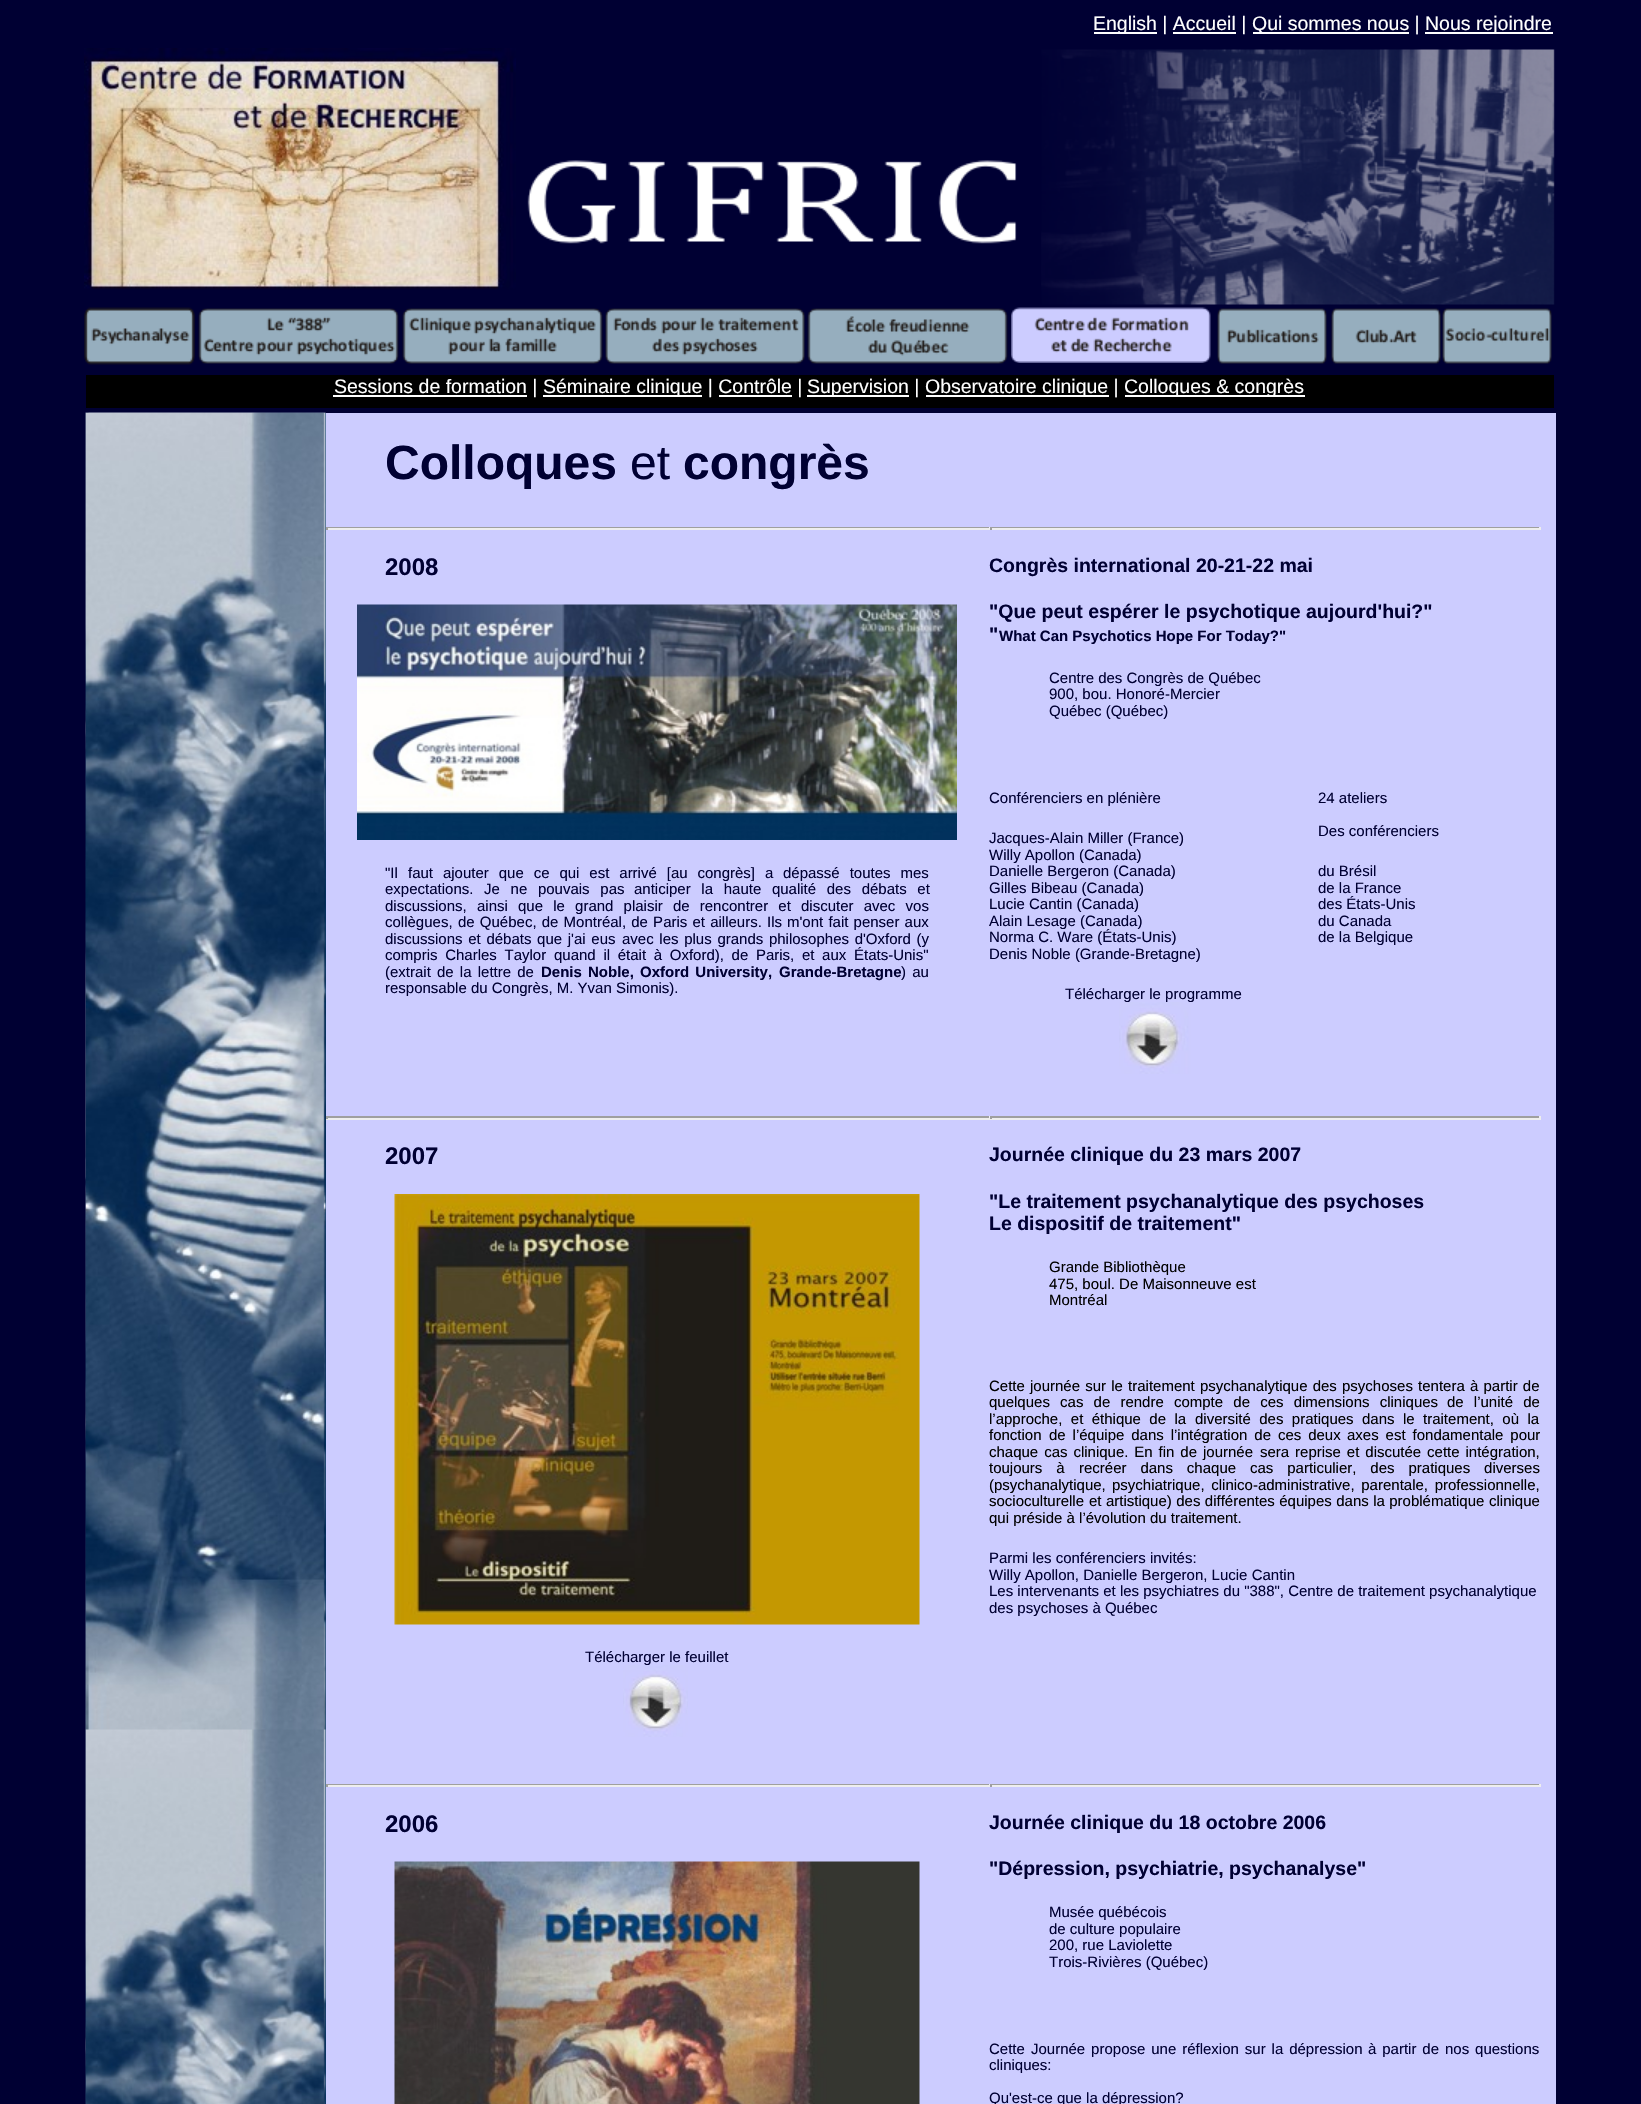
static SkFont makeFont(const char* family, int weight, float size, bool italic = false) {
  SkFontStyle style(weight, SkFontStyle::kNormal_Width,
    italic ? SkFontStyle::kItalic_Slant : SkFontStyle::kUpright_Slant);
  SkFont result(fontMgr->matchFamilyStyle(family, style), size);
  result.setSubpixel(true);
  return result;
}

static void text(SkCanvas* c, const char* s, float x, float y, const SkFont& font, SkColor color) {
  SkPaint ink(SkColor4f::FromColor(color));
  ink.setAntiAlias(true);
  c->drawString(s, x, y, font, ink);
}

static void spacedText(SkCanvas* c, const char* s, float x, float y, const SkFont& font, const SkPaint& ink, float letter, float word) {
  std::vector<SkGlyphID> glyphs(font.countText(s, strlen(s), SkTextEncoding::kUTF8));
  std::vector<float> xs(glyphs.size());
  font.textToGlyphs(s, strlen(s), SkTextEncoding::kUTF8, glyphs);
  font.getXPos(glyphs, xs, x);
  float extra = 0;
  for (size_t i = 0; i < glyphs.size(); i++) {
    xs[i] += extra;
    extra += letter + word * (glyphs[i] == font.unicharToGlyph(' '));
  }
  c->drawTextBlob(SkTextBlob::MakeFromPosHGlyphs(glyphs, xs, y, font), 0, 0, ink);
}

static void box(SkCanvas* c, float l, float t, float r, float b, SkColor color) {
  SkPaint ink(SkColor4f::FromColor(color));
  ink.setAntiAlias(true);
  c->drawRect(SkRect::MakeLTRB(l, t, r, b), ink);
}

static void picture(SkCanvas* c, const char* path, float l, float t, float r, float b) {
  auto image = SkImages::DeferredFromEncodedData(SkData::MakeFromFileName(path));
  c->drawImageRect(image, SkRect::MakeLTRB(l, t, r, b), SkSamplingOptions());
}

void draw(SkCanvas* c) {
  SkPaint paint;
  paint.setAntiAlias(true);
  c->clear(0xff000033);
  box(c, 1094, 32, 1157, 34, 0xffffffff);
  SkFont face1 = makeFont("Liberation Sans", 400, 19.5f);
  text(c, "English | Accueil |", 1093, 30, face1, 0xffffffff);
  box(c, 1173, 32, 1236, 34, 0xffffffff);
  box(c, 1253, 32, 1409, 34, 0xffffffff);
  text(c, "Qui sommes nous |", 1252, 30, face1, 0xffffffff);
  box(c, 1425, 32, 1553, 34, 0xffffffff);
  text(c, "Nous rejoindre", 1425, 30, face1, 0xffffffff);
  picture(c, "img_01.png", 84, 48, 516, 290);
  picture(c, "img_02.png", 527, 160, 616, 244);
  picture(c, "img_03.png", 628, 161, 665, 242);
  picture(c, "img_04.png", 686, 161, 764, 242);
  picture(c, "img_05.png", 776, 161, 874, 242);
  picture(c, "img_06.png", 884, 161, 922, 242);
  picture(c, "img_07.png", 938, 160, 1017, 244);
  picture(c, "img_08.png", 1041, 49, 1555, 305);
  picture(c, "img_09.png", 84, 307, 195, 365);
  picture(c, "img_10.png", 198, 308, 399, 364);
  picture(c, "img_11.png", 402, 308, 603, 364);
  picture(c, "img_12.png", 605, 308, 805, 364);
  picture(c, "img_13.png", 807, 308, 1008, 364);
  picture(c, "img_14.png", 1011, 307, 1211, 363);
  picture(c, "img_15.png", 1217, 308, 1327, 364);
  picture(c, "img_16.png", 1331, 308, 1441, 364);
  picture(c, "img_17.png", 1442, 308, 1552, 364);
  box(c, 86, 375, 1554, 408, 0xff000000);
  box(c, 333, 395, 527, 397, 0xffffffff);
  text(c, "Sessions de formation |", 334, 393, face1, 0xffffffff);
  box(c, 543, 395, 702, 397, 0xffffffff);
  text(c, "Séminaire clinique | Contrôle |", 543, 393, face1, 0xffffffff);
  box(c, 719, 395, 792, 397, 0xffffffff);
  box(c, 807, 395, 909, 397, 0xffffffff);
  text(c, "Supervision |", 807, 393, face1, 0xffffffff);
  box(c, 926, 395, 1109, 397, 0xffffffff);
  text(c, "Observatoire clinique |", 925, 393, face1, 0xffffffff);
  box(c, 1125, 395, 1305, 397, 0xffffffff);
  text(c, "Colloques & congrès", 1124, 393, face1, 0xffffffff);
  box(c, 325, 413, 326, 2104, 0xff003366);
  picture(c, "img_18.png", 85, 412, 326, 2104);
  box(c, 326, 413, 1556, 515, 0xffccccff);
  SkFont face2 = makeFont("Liberation Sans", 700, 48);
  text(c, "Colloques", 385, 479, face2, 0xff000033);
  SkFont face3 = makeFont("Liberation Sans", 400, 48);
  text(c, "et", 630, 479, face3, 0xff000033);
  text(c, "congrès", 683, 479, face2, 0xff000033);
  box(c, 326, 515, 990, 2104, 0xffccccff);
  box(c, 990, 515, 1541, 789, 0xffccccff);
  box(c, 326, 527, 1541, 528, 0xff9f9f9f);
  box(c, 989, 527, 990, 530, 0xffeeeeee);
  box(c, 326, 528, 990, 530, 0xffeeeeee);
  box(c, 326, 527, 328, 530, 0xff9f9f9f);
  SkFont face4 = makeFont("Liberation Sans", 700, 24);
  text(c, "2008", 385, 575, face4, 0xff000033);
  picture(c, "img_19.png", 357, 604, 957, 840);
  SkFont face5 = makeFont("Liberation Sans", 400, 15);
  text(c, "\"Il", 385, 878, face5, 0xff000033);
  paint.setColor(0xff000033);
  spacedText(c, "faut ajouter que ce qui est arrivé [au congrès] a", 408, 878, face5, paint, 0, 5.75f);
  spacedText(c, "dépassé toutes mes", 783, 878, face5, paint, 0, 5.75f);
  spacedText(c, "expectations. Je ne pouvais pas", 385, 894, face5, paint, 0, 6.5f);
  spacedText(c, "anticiper la haute qualité des débats et", 634, 894, face5, paint, 0, 6.5f);
  text(c, "discussions,", 385, 911, face5, 0xff000033);
  spacedText(c, "ainsi que le grand plaisir de rencontrer et discuter avec vos", 477, 911, face5, paint, 0, 6);
  text(c, "collègues,", 385, 927, face5, 0xff000033);
  spacedText(c, "de Québec, de Montréal, de Paris et ailleurs. Ils", 458, 927, face5, paint, 0, 1);
  spacedText(c, "m'ont fait penser aux", 787, 927, face5, paint, 0, 1);
  spacedText(c, "discussions et débats que j'ai eus", 385, 944, face5, paint, 0, 1.5f);
  spacedText(c, "avec les plus grands philosophes d'Oxford (y", 622, 944, face5, paint, 0, 1.5f);
  spacedText(c, "compris Charles Taylor", 385, 960, face5, paint, 0, 3.5f);
  spacedText(c, "quand il était à Oxford), de Paris, et aux États-Unis\"", 554, 960, face5, paint, 0, 3.5f);
  spacedText(c, "(extrait de la lettre de", 385, 977, face5, paint, 0, 2);
  SkFont face6 = makeFont("Liberation Sans", 700, 15);
  spacedText(c, "Denis Noble, Oxford University,", 541, 977, face6, paint, 0, 2);
  text(c, "Grande-Bretagne", 779, 977, face6, 0xff000033);
  spacedText(c, ") au", 901, 977, face5, paint, 0, 2);
  text(c, "responsable du Congrès, M. Yvan Simonis).", 385, 993, face5, 0xff000033);
  box(c, 1539, 527, 1541, 530, 0xffeeeeee);
  box(c, 990, 528, 1541, 530, 0xffeeeeee);
  box(c, 990, 527, 992, 530, 0xff9f9f9f);
  SkFont face7 = makeFont("Liberation Sans", 700, 19.5f);
  text(c, "Congrès international 20-21-22 mai", 989, 572, face7, 0xff000033);
  text(c, "\"Que peut espérer le psychotique aujourd'hui?\"", 989, 618, face7, 0xff000033);
  text(c, "\"", 989, 641, face7, 0xff000033);
  text(c, "What Can Psychotics Hope For Today?\"", 999, 641, face6, 0xff000033);
  text(c, "Centre des Congrès de Québec", 1049, 683, face5, 0xff000033);
  text(c, "900, bou. Honoré-Mercier", 1049, 699, face5, 0xff000033);
  text(c, "Québec (Québec)", 1049, 716, face5, 0xff000033);
  box(c, 1541, 515, 1556, 2104, 0xffccccff);
  box(c, 990, 789, 1541, 2104, 0xffccccff);
  text(c, "Conférenciers en plénière", 989, 803, face5, 0xff000033);
  text(c, "Jacques-Alain Miller (France)", 989, 843, face5, 0xff000033);
  text(c, "Willy Apollon (Canada)", 989, 860, face5, 0xff000033);
  text(c, "Danielle Bergeron (Canada)", 989, 876, face5, 0xff000033);
  text(c, "Gilles Bibeau (Canada)", 989, 893, face5, 0xff000033);
  text(c, "Lucie Cantin (Canada)", 989, 909, face5, 0xff000033);
  text(c, "Alain Lesage (Canada)", 989, 926, face5, 0xff000033);
  text(c, "Norma C. Ware (États-Unis)", 989, 942, face5, 0xff000033);
  text(c, "Denis Noble (Grande-Bretagne)", 989, 959, face5, 0xff000033);
  text(c, "Télécharger le programme", 1065, 999, face5, 0xff000033);
  picture(c, "img_20.png", 1119, 1002, 1191, 1074);
  text(c, "24 ateliers", 1318, 803, face5, 0xff000033);
  text(c, "Des conférenciers", 1318, 836, face5, 0xff000033);
  text(c, "du Brésil", 1318, 876, face5, 0xff000033);
  text(c, "de la France", 1318, 893, face5, 0xff000033);
  text(c, "des États-Unis", 1318, 909, face5, 0xff000033);
  text(c, "du Canada", 1318, 926, face5, 0xff000033);
  text(c, "de la Belgique", 1318, 942, face5, 0xff000033);
  box(c, 326, 1116, 1541, 1118, 0xff9f9f9f);
  box(c, 989, 1116, 990, 1119, 0xffeeeeee);
  box(c, 326, 1118, 990, 1120, 0xffeeeeee);
  box(c, 326, 1116, 328, 1119, 0xff9f9f9f);
  text(c, "2007", 385, 1164, face4, 0xff000033);
  picture(c, "img_21.png", 394, 1194, 920, 1625);
  text(c, "Télécharger le feuillet", 585, 1662, face5, 0xff000033);
  picture(c, "img_22.png", 623, 1665, 688, 1737);
  box(c, 1539, 1116, 1541, 1119, 0xffeeeeee);
  box(c, 990, 1118, 1541, 1120, 0xffeeeeee);
  box(c, 990, 1116, 992, 1119, 0xff9f9f9f);
  text(c, "Journée clinique du 23 mars 2007", 989, 1161, face7, 0xff000033);
  text(c, "\"Le traitement psychanalytique des psychoses", 989, 1208, face7, 0xff000033);
  text(c, "Le dispositif de traitement\"", 989, 1230, face7, 0xff000033);
  text(c, "Grande Bibliothèque", 1049, 1272, face5, 0xff000000);
  text(c, "475, boul. De Maisonneuve est", 1049, 1289, face5, 0xff000000);
  text(c, "Montréal", 1049, 1305, face5, 0xff000000);
  text(c, "Cette", 989, 1391, face5, 0xff000000);
  paint.setColor(0xff000000);
  spacedText(c, "journée sur le traitement psychanalytique des psychoses tentera", 1030, 1391, face5, paint, 0, 1);
  spacedText(c, "à partir de", 1470, 1391, face5, paint, 0, 1);
  spacedText(c, "quelques cas de rendre compte de ces dimensions cliniques", 989, 1407, face5, paint, 0, 6);
  spacedText(c, "de l’unité de", 1447, 1407, face5, paint, 0, 6);
  spacedText(c, "l’approche, et éthique de la", 989, 1424, face5, paint, 0, 4.25f);
  spacedText(c, "diversité des pratiques dans le traitement, où la", 1195, 1424, face5, paint, 0, 4.25f);
  text(c, "fonction", 989, 1440, face5, 0xff000000);
  spacedText(c, "de l’équipe dans l’intégration de ces deux", 1049, 1440, face5, paint, 0, 2.75f);
  spacedText(c, "axes est fondamentale pour", 1347, 1440, face5, paint, 0, 2.75f);
  spacedText(c, "chaque cas clinique. En fin de journée", 989, 1457, face5, paint, 0, 1.75f);
  spacedText(c, "sera reprise et discutée cette intégration,", 1260, 1457, face5, paint, 0, 1.75f);
  spacedText(c, "toujours à", 989, 1473, face5, paint, 0, 9.75f);
  spacedText(c, "recréer dans chaque cas particulier, des pratiques diverses", 1079, 1473, face5, paint, 0, 9.75f);
  text(c, "(psychanalytique,", 989, 1490, face5, 0xff000000);
  spacedText(c, "psychiatrique, clinico-administrative, parentale, professionnelle,", 1112, 1490, face5, paint, 0, 2.5f);
  text(c, "socioculturelle", 989, 1506, face5, 0xff000000);
  spacedText(c, "et artistique) des différentes équipes dans la problématique", 1089, 1506, face5, paint, 0, 0.25f);
  text(c, "clinique", 1489, 1506, face5, 0xff000000);
  text(c, "qui préside à l’évolution du traitement.", 989, 1523, face5, 0xff000000);
  text(c, "Parmi les conférenciers invités:", 989, 1563, face5, 0xff000033);
  text(c, "Willy Apollon, Danielle Bergeron, Lucie Cantin", 989, 1580, face5, 0xff000033);
  text(c, "Les intervenants et les psychiatres du \"388\", Centre de traitement psychanalytique", 989, 1596, face5, 0xff000033);
  text(c, "des psychoses à Québec", 989, 1613, face5, 0xff000033);
  box(c, 326, 1784, 1541, 1785, 0xff9f9f9f);
  box(c, 989, 1784, 990, 1787, 0xffeeeeee);
  box(c, 326, 1785, 990, 1787, 0xffeeeeee);
  box(c, 326, 1784, 328, 1787, 0xff9f9f9f);
  text(c, "2006", 385, 1832, face4, 0xff000033);
  picture(c, "img_23.png", 394, 1861, 920, 2104);
  box(c, 1539, 1784, 1541, 1787, 0xffeeeeee);
  box(c, 990, 1785, 1541, 1787, 0xffeeeeee);
  box(c, 990, 1784, 992, 1787, 0xff9f9f9f);
  text(c, "Journée clinique du 18 octobre 2006", 989, 1829, face7, 0xff000033);
  text(c, "\"Dépression, psychiatrie, psychanalyse\"", 989, 1875, face7, 0xff000033);
  text(c, "Musée québécois", 1049, 1917, face5, 0xff000033);
  text(c, "de culture populaire", 1049, 1934, face5, 0xff000033);
  text(c, "200, rue Laviolette", 1049, 1950, face5, 0xff000033);
  text(c, "Trois-Rivières (Québec)", 1049, 1967, face5, 0xff000033);
  text(c, "Cette", 989, 2054, face5, 0xff000033);
  paint.setColor(0xff000033);
  spacedText(c, "Journée propose une réflexion sur la dépression", 1031, 2054, face5, paint, 0, 1.75f);
  spacedText(c, "à partir de nos questions", 1368, 2054, face5, paint, 0, 1.75f);
  text(c, "cliniques:", 989, 2070, face5, 0xff000033);
  text(c, "Qu'est-ce que la dépression?", 989, 2103, face5, 0xff000033);
}
